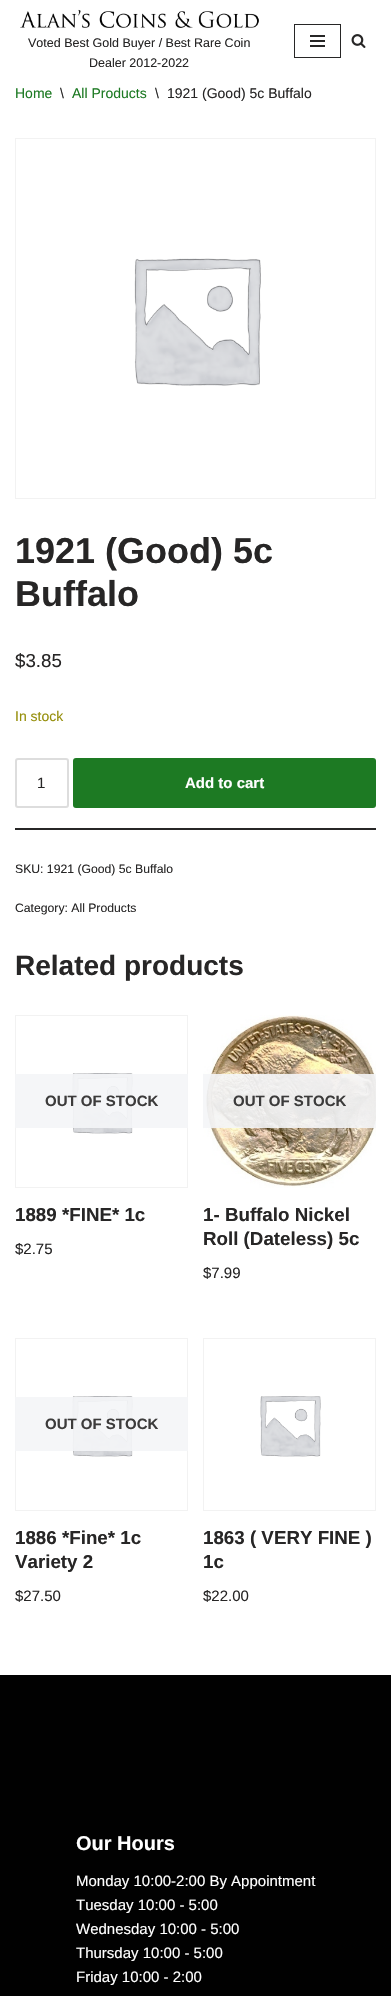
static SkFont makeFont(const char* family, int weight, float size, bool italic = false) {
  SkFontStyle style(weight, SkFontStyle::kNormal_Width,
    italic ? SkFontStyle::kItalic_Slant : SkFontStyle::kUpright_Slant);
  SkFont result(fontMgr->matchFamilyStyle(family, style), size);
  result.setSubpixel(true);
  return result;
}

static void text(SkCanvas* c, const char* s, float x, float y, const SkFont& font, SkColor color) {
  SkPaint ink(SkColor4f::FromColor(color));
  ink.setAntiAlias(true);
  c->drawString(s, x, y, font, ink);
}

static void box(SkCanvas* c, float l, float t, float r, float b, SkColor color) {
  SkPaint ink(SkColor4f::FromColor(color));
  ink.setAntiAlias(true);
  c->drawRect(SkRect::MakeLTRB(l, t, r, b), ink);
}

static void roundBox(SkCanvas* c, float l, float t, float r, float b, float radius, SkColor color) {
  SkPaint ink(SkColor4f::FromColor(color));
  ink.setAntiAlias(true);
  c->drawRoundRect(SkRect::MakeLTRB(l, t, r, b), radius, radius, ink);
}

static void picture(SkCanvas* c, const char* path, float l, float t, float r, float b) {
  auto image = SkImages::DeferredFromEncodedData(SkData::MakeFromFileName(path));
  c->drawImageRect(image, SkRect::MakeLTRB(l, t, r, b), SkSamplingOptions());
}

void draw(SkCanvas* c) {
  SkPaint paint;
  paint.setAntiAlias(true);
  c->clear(0xffffffff);
  picture(c, "img_01.png", 20, 9, 259, 28);
  SkFont face1 = makeFont("Liberation Sans", 400, 12.5f);
  text(c, "Voted Best Gold Buyer / Best Rare Coin", 28, 47, face1, 0xff272626);
  text(c, "Dealer 2012-2022", 89, 67, face1, 0xff272626);
  paint.setStyle(SkPaint::kStroke_Style);
  paint.setStrokeWidth(1);
  paint.setColor(0xff272626);
  c->drawRect(SkRect::MakeLTRB(294.5f, 24.5f, 340.5f, 57.5f), paint);
  box(c, 310, 35, 325, 37, 0xff272626);
  box(c, 310, 40, 325, 42, 0xff272626);
  box(c, 310, 45, 325, 47, 0xff272626);
  picture(c, "img_02.png", 351, 34, 366, 48);
  SkFont face2 = makeFont("Liberation Sans", 400, 14);
  text(c, "Home", 15, 98, face2, 0xff1d7a23);
  text(c, "\\", 60, 98, face2, 0xff272626);
  text(c, "All Products", 72, 98, face2, 0xff1d7a23);
  text(c, "\\", 155, 98, face2, 0xff272626);
  text(c, "1921 (Good) 5c Buffalo", 167, 98, face2, 0xff272626);
  paint.setColor(0xfff2f2f2);
  c->drawRect(SkRect::MakeLTRB(15.5f, 138.5f, 375.5f, 498.5f), paint);
  picture(c, "img_03.png", 134, 258, 261, 386);
  SkFont face3 = makeFont("Liberation Sans", 700, 36);
  text(c, "1921 (Good) 5c", 15, 563, face3, 0xff272626);
  text(c, "Buffalo", 15, 606, face3, 0xff272626);
  SkFont face4 = makeFont("Liberation Sans", 400, 18.75f);
  text(c, "$3.85", 15, 667, face4, 0xff272626);
  text(c, "In stock", 15, 721, face2, 0xff958e09);
  box(c, 15, 828, 376, 830, 0xff272626);
  paint.setStrokeWidth(2);
  paint.setColor(0xffdddddd);
  c->drawRoundRect(SkRect::MakeLTRB(16, 759, 68, 807), 2, 2, paint);
  SkFont face5 = makeFont("Liberation Sans", 400, 15);
  text(c, "1", 37, 788, face5, 0xff272626);
  roundBox(c, 73, 758, 376, 808, 3, 0xff1d7a23);
  SkFont face6 = makeFont("Liberation Sans", 700, 15);
  text(c, "Add to cart", 185, 788, face6, 0xffffffff);
  SkFont face7 = makeFont("Liberation Sans", 400, 12.2f);
  text(c, "SKU: 1921 (Good) 5c Buffalo", 15, 873, face7, 0xff272626);
  text(c, "Category: All Products", 15, 912, face7, 0xff272626);
  SkFont face8 = makeFont("Liberation Sans", 700, 28);
  text(c, "Related products", 15, 975, face8, 0xff272626);
  paint.setStrokeWidth(1);
  paint.setColor(0xfff2f2f2);
  c->drawRect(SkRect::MakeLTRB(15.5f, 1015.5f, 187.5f, 1187.5f), paint);
  picture(c, "img_04.png", 72, 1073, 133, 1134);
  box(c, 15, 1074, 188, 1128, 0xe6f4f5f7);
  text(c, "OUT OF STOCK", 45, 1106, face6, 0xff3c3b3b);
  SkFont face9 = makeFont("Liberation Sans", 700, 18.75f);
  text(c, "1889 *FINE* 1c", 15, 1221, face9, 0xff272626);
  text(c, "$2.75", 15, 1254, face5, 0xff272626);
  picture(c, "img_05.png", 203, 1015, 376, 1188);
  box(c, 203, 1074, 376, 1128, 0xe6f4f5f7);
  text(c, "OUT OF STOCK", 233, 1106, face6, 0xff3c3b3b);
  text(c, "1- Buffalo Nickel", 203, 1221, face9, 0xff272626);
  text(c, "Roll (Dateless) 5c", 203, 1245, face9, 0xff272626);
  text(c, "$7.99", 203, 1278, face5, 0xff272626);
  c->drawRect(SkRect::MakeLTRB(15.5f, 1338.5f, 187.5f, 1510.5f), paint);
  picture(c, "img_04.png", 72, 1396, 133, 1457);
  box(c, 15, 1397, 188, 1451, 0xe6f4f5f7);
  text(c, "OUT OF STOCK", 45, 1429, face6, 0xff3c3b3b);
  text(c, "1886 *Fine* 1c", 15, 1544, face9, 0xff272626);
  text(c, "Variety 2", 15, 1568, face9, 0xff272626);
  text(c, "$27.50", 15, 1601, face5, 0xff272626);
  c->drawRect(SkRect::MakeLTRB(203.5f, 1338.5f, 375.5f, 1510.5f), paint);
  picture(c, "img_04.png", 260, 1396, 321, 1457);
  text(c, "1863 ( VERY FINE )", 203, 1544, face9, 0xff272626);
  text(c, "1c", 203, 1568, face9, 0xff272626);
  text(c, "$22.00", 203, 1601, face5, 0xff272626);
  box(c, 0, 1675, 391, 1996, 0xff010101);
  SkFont face10 = makeFont("Liberation Sans", 700, 20);
  text(c, "Our Hours", 76, 1850, face10, 0xffffffff);
  text(c, "Monday 10:00-2:00 By Appointment", 76, 1886, face5, 0xffffffff);
  text(c, "Tuesday 10:00 - 5:00", 76, 1910, face5, 0xffffffff);
  text(c, "Wednesday 10:00 - 5:00", 76, 1934, face5, 0xffffffff);
  text(c, "Thursday 10:00 - 5:00", 76, 1958, face5, 0xffffffff);
  text(c, "Friday 10:00 - 2:00", 76, 1982, face5, 0xffffffff);
}
